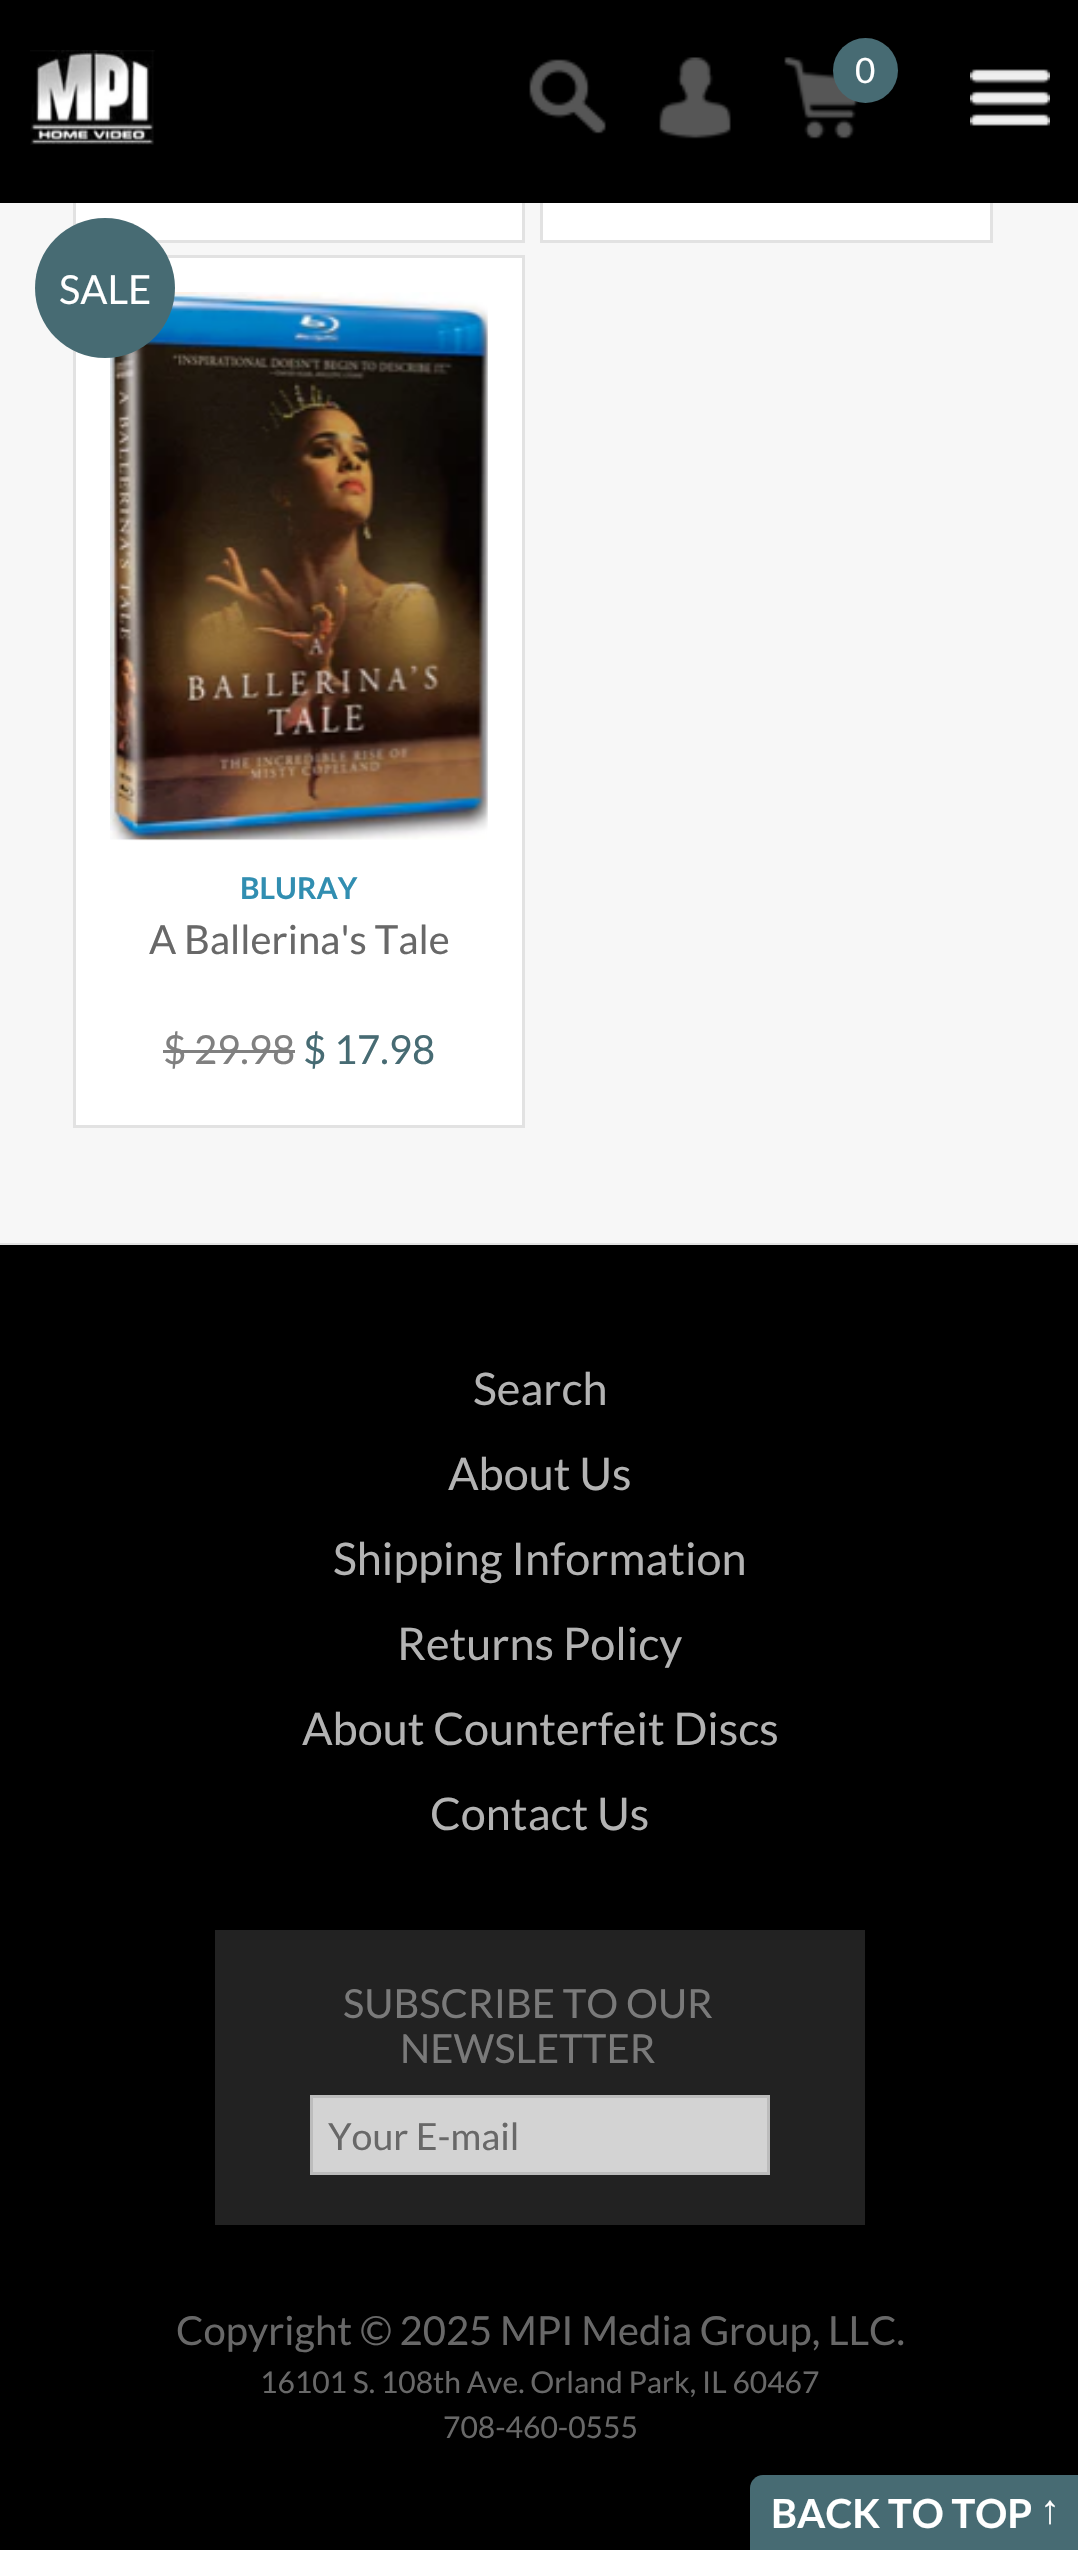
static SkFont makeFont(const char* family, int weight, float size, bool italic = false) {
  SkFontStyle style(weight, SkFontStyle::kNormal_Width,
    italic ? SkFontStyle::kItalic_Slant : SkFontStyle::kUpright_Slant);
  SkFont result(fontMgr->matchFamilyStyle(family, style), size);
  result.setSubpixel(true);
  return result;
}

static void text(SkCanvas* c, const char* s, float x, float y, const SkFont& font, SkColor color) {
  SkPaint ink(SkColor4f::FromColor(color));
  ink.setAntiAlias(true);
  c->drawString(s, x, y, font, ink);
}

static void box(SkCanvas* c, float l, float t, float r, float b, SkColor color) {
  SkPaint ink(SkColor4f::FromColor(color));
  ink.setAntiAlias(true);
  c->drawRect(SkRect::MakeLTRB(l, t, r, b), ink);
}

static void picture(SkCanvas* c, const char* path, float l, float t, float r, float b) {
  auto image = SkImages::DeferredFromEncodedData(SkData::MakeFromFileName(path));
  c->drawImageRect(image, SkRect::MakeLTRB(l, t, r, b), SkSamplingOptions());
}

void draw(SkCanvas* c) {
  SkPaint paint;
  paint.setAntiAlias(true);
  c->clear(0xfff7f7f7);
  box(c, 76, 203, 522, 240, 0xffffffff);
  paint.setStyle(SkPaint::kStroke_Style);
  paint.setStrokeWidth(3);
  paint.setColor(0xffe2e2e2);
  c->drawRect(SkRect::MakeLTRB(74.5f, -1.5f, 523.5f, 241.5f), paint);
  box(c, 543, 203, 990, 240, 0xffffffff);
  c->drawRect(SkRect::MakeLTRB(541.5f, -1.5f, 991.5f, 241.5f), paint);
  box(c, 0, 0, 1078, 203, 0xff000000);
  picture(c, "img_01.png", 30, 50, 155, 145);
  picture(c, "img_02.png", 529, 59, 606, 134);
  picture(c, "img_03.png", 659, 57, 731, 139);
  picture(c, "img_04.png", 784, 57, 859, 139);
  paint.setStyle(SkPaint::kFill_Style);
  paint.setColor(0xff476b73);
  c->drawCircle(865.5f, 70.5f, 32.5f, paint);
  SkFont face1 = makeFont("Lato", 400, 35);
  text(c, "0", 855, 83, face1, 0xffffffff);
  picture(c, "img_05.png", 970, 69, 1050, 126);
  box(c, 0, 1243, 1078, 1245, 0xffe2e2e2);
  box(c, 76, 258, 522, 1125, 0xffffffff);
  box(c, 163, 1050, 295, 1053, 0xff808080);
  paint.setStyle(SkPaint::kStroke_Style);
  paint.setColor(0xffe2e2e2);
  c->drawRect(SkRect::MakeLTRB(74.5f, 256.5f, 523.5f, 1126.5f), paint);
  picture(c, "img_06.png", 110, 292, 488, 841);
  paint.setStyle(SkPaint::kFill_Style);
  paint.setColor(0xff476b73);
  c->drawCircle(105, 288, 70, paint);
  SkFont face2 = makeFont("Lato", 400, 40);
  text(c, "SALE", 59, 304, face2, 0xffffffff);
  SkFont face3 = makeFont("Lato", 700, 30);
  text(c, "BLURAY", 240, 899, face3, 0xff318eb1);
  text(c, "A Ballerina's Tale", 149, 954, face2, 0xff686868);
  text(c, "$ 29.98", 163, 1064, face2, 0xff808080);
  text(c, "$ 17.98", 303, 1064, face2, 0xff476b73);
  box(c, 0, 1245, 1078, 2550, 0xff000000);
  SkFont face4 = makeFont("Lato", 400, 45);
  text(c, "Search", 473, 1405, face4, 0xffb3b3b3);
  text(c, "About Us", 448, 1490, face4, 0xffb3b3b3);
  text(c, "Shipping Information", 333, 1575, face4, 0xffb3b3b3);
  text(c, "Returns Policy", 397, 1660, face4, 0xffb3b3b3);
  text(c, "About Counterfeit Discs", 302, 1745, face4, 0xffb3b3b3);
  text(c, "Contact Us", 430, 1830, face4, 0xffb3b3b3);
  box(c, 215, 1930, 865, 2225, 0xff222222);
  text(c, "SUBSCRIBE TO OUR", 343, 2018, face2, 0xff7a7a7a);
  text(c, "NEWSLETTER", 400, 2063, face2, 0xff7a7a7a);
  paint.setColor(0xffd3d3d3);
  c->drawRect(SkRect::MakeLTRB(311.5f, 2096.5f, 768.5f, 2173.5f), paint);
  paint.setStyle(SkPaint::kStroke_Style);
  paint.setColor(0xffbcbcbc);
  c->drawRect(SkRect::MakeLTRB(311.5f, 2096.5f, 768.5f, 2173.5f), paint);
  SkFont face5 = makeFont("Lato", 400, 37.5f);
  text(c, "Your E-mail", 328, 2150, face5, 0xff686868);
  text(c, "Copyright © 2025 MPI Media Group, LLC.", 176, 2345, face2, 0xff686868);
  SkFont face6 = makeFont("Lato", 400, 30);
  text(c, "16101 S. 108th Ave. Orland Park, IL 60467", 260, 2393, face6, 0xff686868);
  text(c, "708-460-0555", 443, 2438, face6, 0xff686868);
  paint.setStyle(SkPaint::kFill_Style);
  paint.setColor(0xff476b73);
  c->drawPath(SkPathBuilder().moveTo(763, 2475).lineTo(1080, 2475).lineTo(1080, 2550).lineTo(750, 2550).lineTo(750, 2488).cubicTo(750, 2481, 756, 2475, 763, 2475).close().detach(), paint);
  SkFont face7 = makeFont("Lato", 700, 40);
  text(c, "BACK TO TOP", 771, 2528, face7, 0xffffffff);
  SkFont face8 = makeFont("Liberation Sans", 700, 40);
  text(c, "↑", 1040, 2523, face8, 0xffffffff);
}
